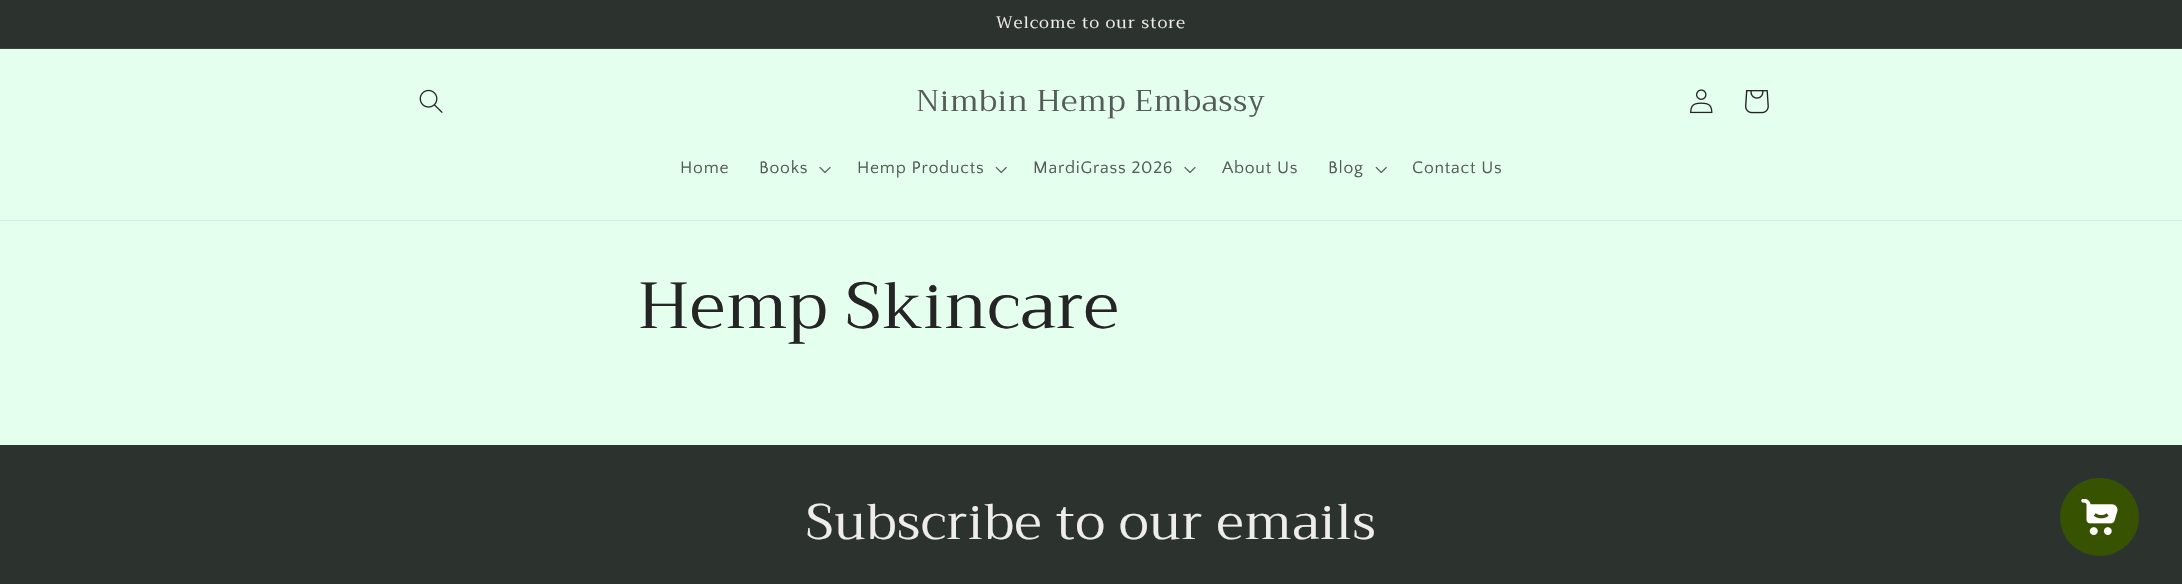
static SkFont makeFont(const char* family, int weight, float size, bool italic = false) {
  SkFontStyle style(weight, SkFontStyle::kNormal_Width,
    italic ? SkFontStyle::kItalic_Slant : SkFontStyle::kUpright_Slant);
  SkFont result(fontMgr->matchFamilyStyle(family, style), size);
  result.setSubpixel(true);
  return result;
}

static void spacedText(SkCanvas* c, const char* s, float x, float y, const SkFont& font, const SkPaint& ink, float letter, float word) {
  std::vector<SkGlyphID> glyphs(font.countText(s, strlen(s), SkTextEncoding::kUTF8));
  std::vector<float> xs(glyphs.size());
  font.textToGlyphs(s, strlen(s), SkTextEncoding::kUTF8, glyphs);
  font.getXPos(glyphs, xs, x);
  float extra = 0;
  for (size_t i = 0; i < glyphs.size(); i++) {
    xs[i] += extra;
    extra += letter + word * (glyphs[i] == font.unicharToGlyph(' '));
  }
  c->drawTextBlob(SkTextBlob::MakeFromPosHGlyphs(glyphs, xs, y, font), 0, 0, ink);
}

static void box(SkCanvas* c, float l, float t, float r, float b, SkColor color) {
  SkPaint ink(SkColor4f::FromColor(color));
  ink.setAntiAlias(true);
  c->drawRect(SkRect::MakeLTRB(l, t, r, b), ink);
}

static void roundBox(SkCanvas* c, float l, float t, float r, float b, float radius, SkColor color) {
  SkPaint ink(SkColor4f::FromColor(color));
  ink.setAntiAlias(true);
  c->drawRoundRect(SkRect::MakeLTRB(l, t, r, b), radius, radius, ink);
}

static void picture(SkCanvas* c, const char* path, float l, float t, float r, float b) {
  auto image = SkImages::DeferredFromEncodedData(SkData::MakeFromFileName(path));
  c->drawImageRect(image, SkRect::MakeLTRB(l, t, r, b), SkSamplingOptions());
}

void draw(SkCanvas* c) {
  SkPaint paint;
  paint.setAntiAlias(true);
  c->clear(0xffe5ffef);
  box(c, 0, 0, 2182, 48, 0xff2c332f);
  box(c, 0, 48, 2182, 49, 0xff3c423e);
  SkFont face1 = makeFont("Trirong", 400, 16.25f);
  paint.setColor(0xffefecec);
  spacedText(c, "Welcome to our store", 996, 28, face1, paint, 1.25f, 0);
  box(c, 0, 220, 2182, 221, 0xffd6eedf);
  picture(c, "img_01.png", 419, 89, 443, 113);
  SkFont face2 = makeFont("Trirong", 400, 30);
  paint.setColor(0xff555c58);
  spacedText(c, "Nimbin Hemp Embassy", 916, 111, face2, paint, 0.75f, 0);
  picture(c, "img_02.png", 1690, 89, 1713, 114);
  picture(c, "img_03.png", 1745, 90, 1769, 114);
  SkFont face3 = makeFont("Quattrocento Sans", 400, 17.5f);
  spacedText(c, "Home", 680, 173, face3, paint, 0.75f, 0);
  spacedText(c, "Books", 759, 173, face3, paint, 0.75f, 0);
  picture(c, "img_04.png", 819, 167, 831, 173);
  spacedText(c, "Hemp Products", 857, 173, face3, paint, 0.75f, 0);
  picture(c, "img_05.png", 995, 166, 1007, 174);
  spacedText(c, "MardiGrass 2026", 1033, 173, face3, paint, 0.75f, 0);
  picture(c, "img_04.png", 1184, 167, 1196, 173);
  spacedText(c, "About Us", 1222, 173, face3, paint, 0.75f, 0);
  spacedText(c, "Blog", 1328, 173, face3, paint, 0.75f, 0);
  picture(c, "img_05.png", 1375, 166, 1387, 174);
  spacedText(c, "Contact Us", 1412, 173, face3, paint, 0.75f, 0);
  SkFont face4 = makeFont("Trirong", 400, 65);
  paint.setColor(0xff252525);
  spacedText(c, "Hemp Skincare", 638, 328, face4, paint, 0.75f, 0);
  box(c, 0, 445, 2182, 584, 0xff2c332f);
  SkFont face5 = makeFont("Trirong", 400, 50);
  paint.setColor(0xffefecec);
  spacedText(c, "Subscribe to our emails", 806, 539, face5, paint, 0.75f, 0);
  roundBox(c, 2060, 478, 2139, 556, 39, 0xff375301);
  picture(c, "img_06.png", 2081, 499, 2118, 535);
}
